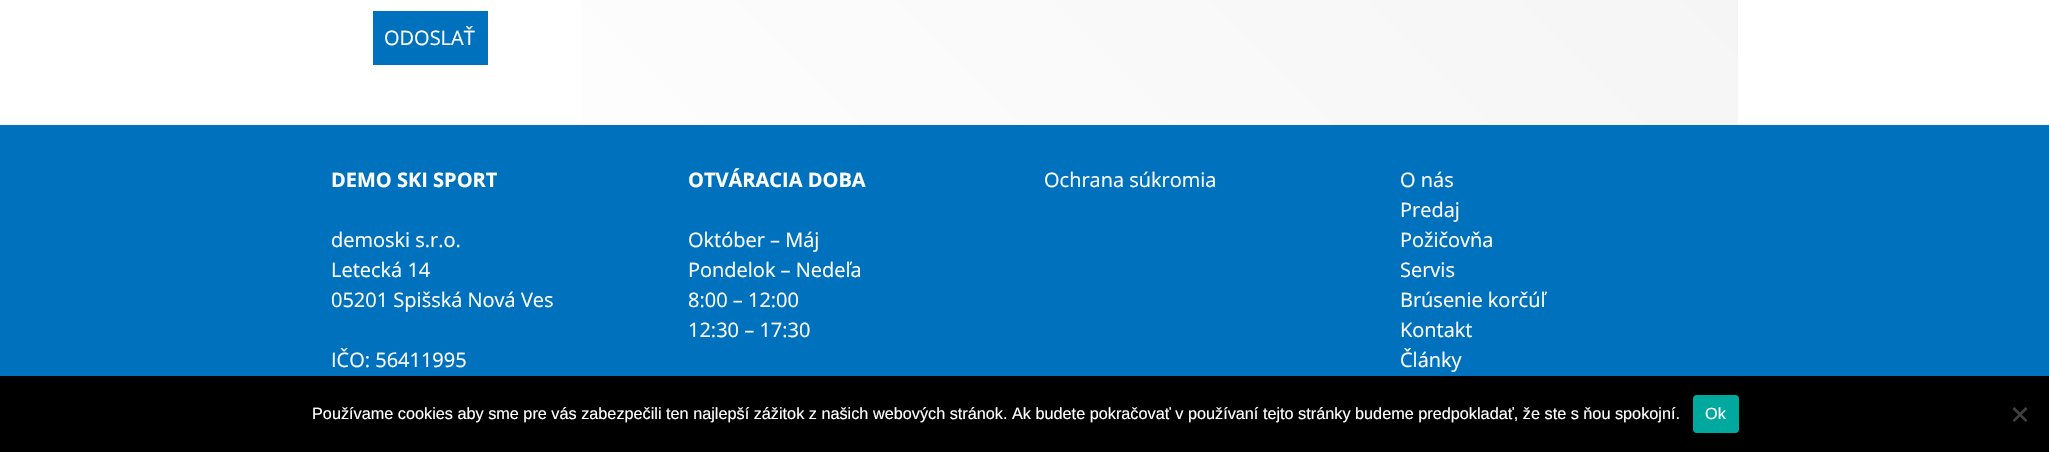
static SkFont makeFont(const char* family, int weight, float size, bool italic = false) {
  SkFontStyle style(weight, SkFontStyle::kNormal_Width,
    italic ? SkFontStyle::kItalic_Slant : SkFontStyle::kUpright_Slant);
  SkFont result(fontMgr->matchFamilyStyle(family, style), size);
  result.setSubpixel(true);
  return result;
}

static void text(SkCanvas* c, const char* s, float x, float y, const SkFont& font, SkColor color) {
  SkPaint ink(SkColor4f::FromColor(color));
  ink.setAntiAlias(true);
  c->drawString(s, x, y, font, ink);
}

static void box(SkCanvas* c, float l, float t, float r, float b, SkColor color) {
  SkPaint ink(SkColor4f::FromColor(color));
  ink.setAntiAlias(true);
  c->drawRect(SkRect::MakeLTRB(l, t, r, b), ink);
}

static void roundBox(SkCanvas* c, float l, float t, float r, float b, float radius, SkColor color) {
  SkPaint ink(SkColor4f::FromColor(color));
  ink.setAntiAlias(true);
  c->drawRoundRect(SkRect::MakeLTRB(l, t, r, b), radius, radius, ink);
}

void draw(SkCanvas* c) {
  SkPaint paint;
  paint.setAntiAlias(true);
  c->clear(0xffffffff);
  {
    const SkColor colors[] = {0xfff2f2f2, 0xffffffff};
    const float stops[] = {0, 1};
    const SkPoint ends[] = {{1536, -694}, {514, 327}};
    paint.setShader(SkGradientShader::MakeLinear(ends, colors, stops, 2, SkTileMode::kClamp));
    paint.setAlpha(255);
  }
  c->drawRect(SkRect::MakeLTRB(581, 0, 1738, 125), paint);
  box(c, 373, 11, 488, 65, 0xff0071bc);
  SkFont face1 = makeFont("Open Sans", 400, 20);
  text(c, "ODOSLAŤ", 384, 45, face1, 0xffffffff);
  box(c, 0, 125, 2049, 376, 0xff0071bc);
  SkFont face2 = makeFont("Open Sans", 700, 20);
  text(c, "DEMO SKI SPORT", 331, 187, face2, 0xffffffff);
  text(c, "demoski s.r.o.", 331, 247, face1, 0xffffffff);
  text(c, "Letecká 14", 331, 277, face1, 0xffffffff);
  text(c, "05201 Spišská Nová Ves", 331, 307, face1, 0xffffffff);
  text(c, "IČO: 56411995", 331, 367, face1, 0xffffffff);
  text(c, "OTVÁRACIA DOBA", 688, 187, face2, 0xffffffff);
  text(c, "Október – Máj", 688, 247, face1, 0xffffffff);
  text(c, "Pondelok – Nedeľa", 688, 277, face1, 0xffffffff);
  text(c, "8:00 – 12:00", 688, 307, face1, 0xffffffff);
  text(c, "12:30 – 17:30", 688, 337, face1, 0xffffffff);
  text(c, "Ochrana súkromia", 1044, 187, face1, 0xffffffff);
  text(c, "O nás", 1400, 187, face1, 0xffffffff);
  text(c, "Predaj", 1400, 217, face1, 0xffffffff);
  text(c, "Požičovňa", 1400, 247, face1, 0xffffffff);
  text(c, "Servis", 1400, 277, face1, 0xffffffff);
  text(c, "Brúsenie korčúľ", 1400, 307, face1, 0xffffffff);
  text(c, "Kontakt", 1400, 337, face1, 0xffffffff);
  text(c, "Články", 1400, 367, face1, 0xffffffff);
  box(c, 0, 376, 2049, 452, 0xff000000);
  SkFont face3 = makeFont("Liberation Sans", 400, 16.25f);
  text(c, "Používame cookies aby sme pre vás zabezpečili ten najlepší zážitok z našich webových stránok. Ak budete pokračovať v používaní tejto stránky budeme predpokladať, že ste s ňou spokojní.", 312, 419, face3, 0xffffffff);
  roundBox(c, 1693, 395, 1739, 433, 4, 0xff00a99d);
  text(c, "Ok", 1705, 419, face3, 0xffffffff);
  paint.setShader(nullptr);
  paint.setColor(0xff404040);
  c->drawPath(SkPathBuilder().moveTo(2025.5f, 407).lineTo(2027.5f, 409).lineTo(2014.5f, 422).lineTo(2012.5f, 420.5f).close().detach(), paint);
  c->drawPath(SkPathBuilder().moveTo(2012.5f, 409).lineTo(2014.5f, 407).lineTo(2027.5f, 420.5f).lineTo(2025.5f, 422).close().detach(), paint);
}
